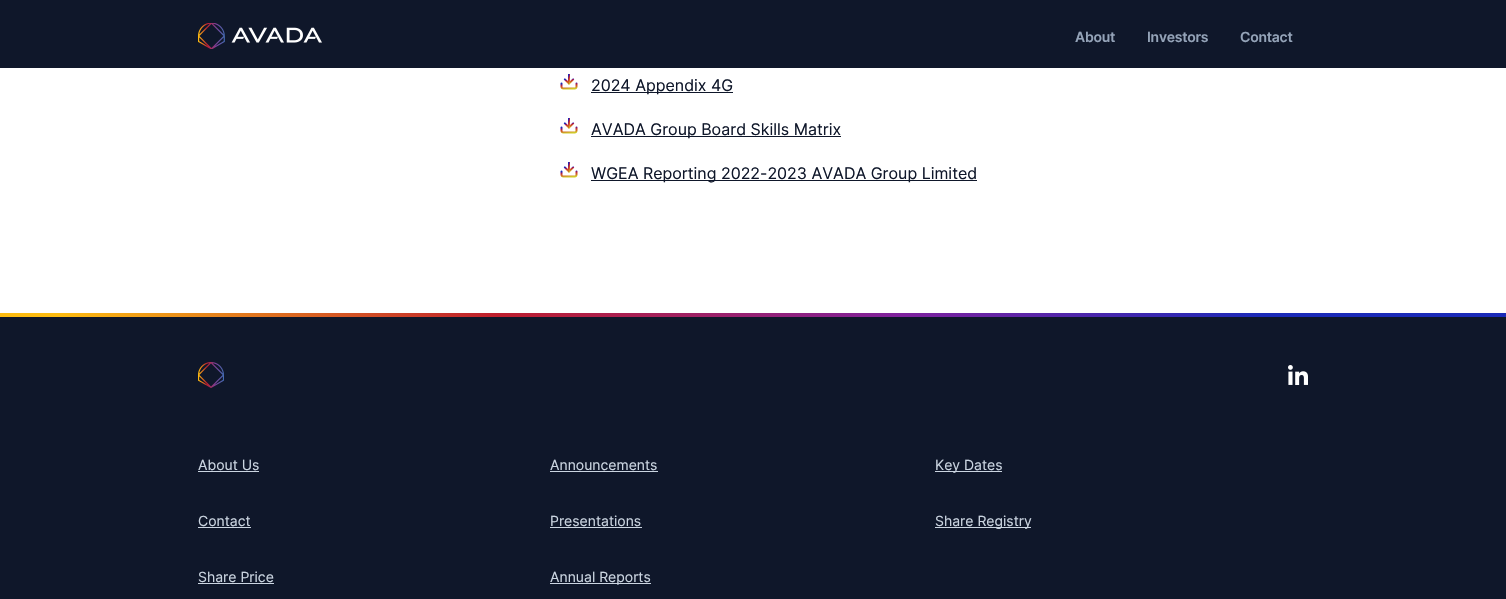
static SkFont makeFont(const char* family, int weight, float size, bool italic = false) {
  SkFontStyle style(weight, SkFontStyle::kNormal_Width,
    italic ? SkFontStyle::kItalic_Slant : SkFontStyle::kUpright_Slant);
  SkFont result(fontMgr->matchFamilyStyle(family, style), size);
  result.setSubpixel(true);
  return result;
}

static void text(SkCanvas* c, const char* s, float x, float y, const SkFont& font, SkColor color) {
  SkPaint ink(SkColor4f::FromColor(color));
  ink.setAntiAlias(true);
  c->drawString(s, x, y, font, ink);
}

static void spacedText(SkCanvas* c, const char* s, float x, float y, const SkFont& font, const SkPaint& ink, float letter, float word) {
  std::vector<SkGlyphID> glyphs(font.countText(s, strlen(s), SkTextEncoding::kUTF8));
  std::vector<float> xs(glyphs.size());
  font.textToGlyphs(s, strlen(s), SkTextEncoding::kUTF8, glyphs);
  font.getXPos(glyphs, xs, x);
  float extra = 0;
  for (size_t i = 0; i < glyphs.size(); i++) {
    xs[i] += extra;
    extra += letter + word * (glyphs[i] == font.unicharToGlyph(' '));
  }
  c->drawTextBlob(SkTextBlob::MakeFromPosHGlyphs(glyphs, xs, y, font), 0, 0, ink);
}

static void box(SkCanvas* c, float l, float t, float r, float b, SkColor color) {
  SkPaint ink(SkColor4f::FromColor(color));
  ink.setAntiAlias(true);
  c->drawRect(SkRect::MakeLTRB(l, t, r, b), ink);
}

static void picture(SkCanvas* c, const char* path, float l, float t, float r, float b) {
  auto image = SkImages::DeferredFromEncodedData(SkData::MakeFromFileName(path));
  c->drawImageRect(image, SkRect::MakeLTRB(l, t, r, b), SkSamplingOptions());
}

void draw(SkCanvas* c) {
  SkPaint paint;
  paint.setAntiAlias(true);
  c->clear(0xffffffff);
  box(c, 0, 0, 1506, 68, 0xff0f172a);
  picture(c, "img_01.png", 198, 23, 322, 49);
  SkFont face1 = makeFont("Inter", 600, 14);
  paint.setColor(0xff94a3b8);
  spacedText(c, "About", 1075, 42, face1, paint, -0.25f, 0);
  spacedText(c, "Investors", 1147, 42, face1, paint, -0.25f, 0);
  spacedText(c, "Contact", 1240, 42, face1, paint, -0.25f, 0);
  picture(c, "img_02.png", 560, 74, 578, 90);
  box(c, 591, 92, 733, 93, 0xff0f172a);
  SkFont face2 = makeFont("Inter", 400, 16);
  text(c, "2024 Appendix 4G", 591, 91, face2, 0xff0f172a);
  picture(c, "img_03.png", 560, 118, 578, 134);
  box(c, 591, 136, 841, 137, 0xff0f172a);
  text(c, "AVADA Group Board Skills Matrix", 591, 135, face2, 0xff0f172a);
  picture(c, "img_04.png", 560, 162, 578, 178);
  box(c, 591, 180, 977, 181, 0xff0f172a);
  text(c, "WGEA Reporting 2022-2023 AVADA Group Limited", 591, 179, face2, 0xff0f172a);
  box(c, 0, 317, 1506, 599, 0xff0f172a);
  {
    const SkColor colors[] = {0xfffdbc11, 0xffbe1e2d, 0xff7e229e, 0xff1a2ab8};
    const float stops[] = {0.04f, 0.33f, 0.6f, 0.84f};
    const SkPoint ends[] = {{517, 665}, {989, -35}};
    paint.setShader(SkGradientShader::MakeLinear(ends, colors, stops, 4, SkTileMode::kClamp));
    paint.setAlpha(255);
  }
  c->drawRect(SkRect::MakeLTRB(0, 313, 1506, 317), paint);
  picture(c, "img_05.png", 198, 362, 224, 388);
  picture(c, "img_06.png", 1288, 365, 1308, 385);
  SkFont face3 = makeFont("Inter", 400, 14);
  text(c, "About Us", 198, 470, face3, 0xffcbd5e1);
  box(c, 198, 471, 259, 472, 0xffcbd5e1);
  text(c, "Announcements", 550, 470, face3, 0xffcbd5e1);
  box(c, 550, 471, 658, 472, 0xffcbd5e1);
  box(c, 935, 471, 1002, 472, 0xffcbd5e1);
  text(c, "Key Dates", 935, 470, face3, 0xffcbd5e1);
  text(c, "Contact", 198, 526, face3, 0xffcbd5e1);
  box(c, 198, 527, 251, 528, 0xffcbd5e1);
  text(c, "Presentations", 550, 526, face3, 0xffcbd5e1);
  box(c, 550, 527, 642, 528, 0xffcbd5e1);
  box(c, 935, 527, 1031, 528, 0xffcbd5e1);
  text(c, "Share Registry", 935, 526, face3, 0xffcbd5e1);
  text(c, "Share Price", 198, 582, face3, 0xffcbd5e1);
  box(c, 198, 583, 274, 584, 0xffcbd5e1);
  box(c, 550, 583, 651, 584, 0xffcbd5e1);
  text(c, "Annual Reports", 550, 582, face3, 0xffcbd5e1);
}
